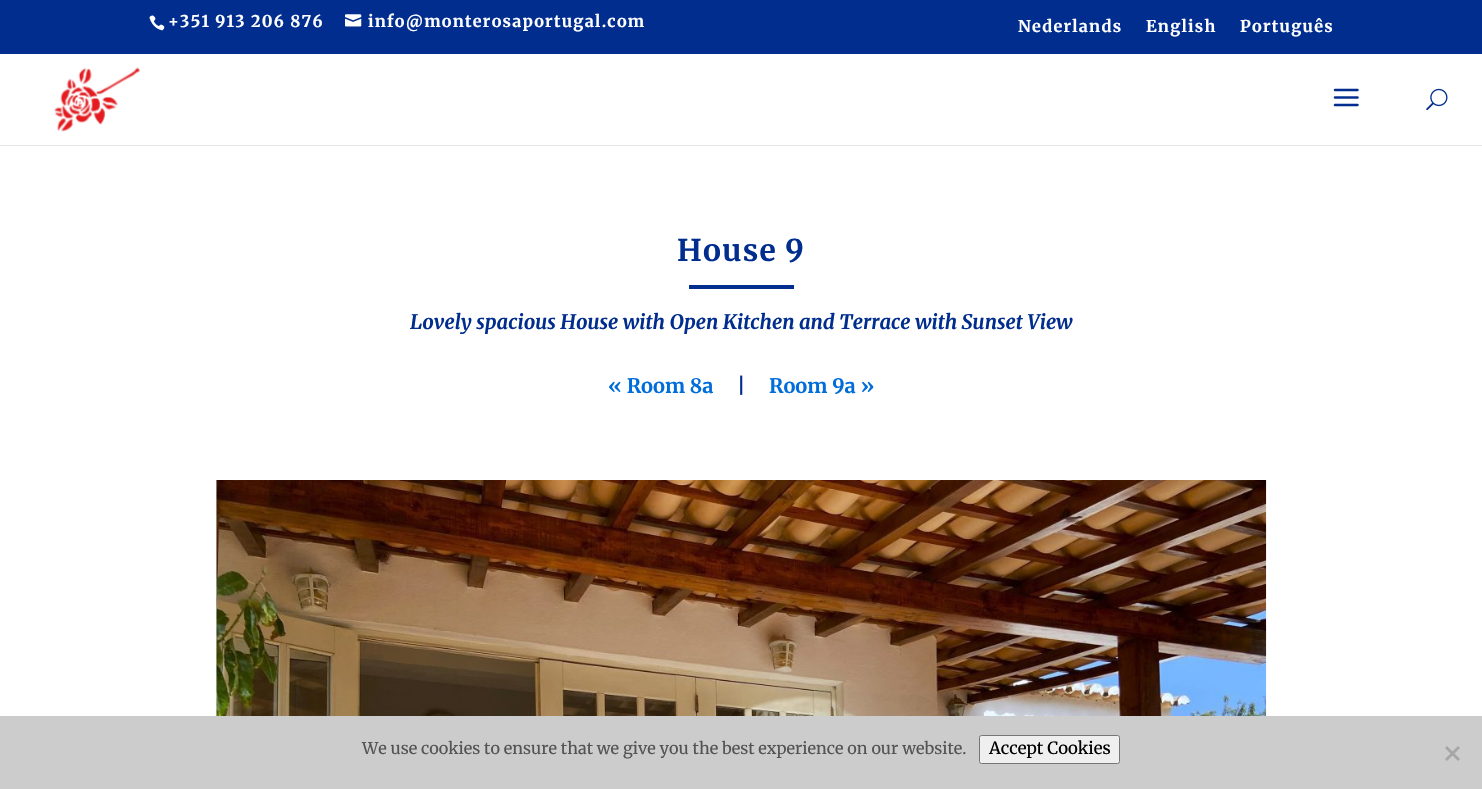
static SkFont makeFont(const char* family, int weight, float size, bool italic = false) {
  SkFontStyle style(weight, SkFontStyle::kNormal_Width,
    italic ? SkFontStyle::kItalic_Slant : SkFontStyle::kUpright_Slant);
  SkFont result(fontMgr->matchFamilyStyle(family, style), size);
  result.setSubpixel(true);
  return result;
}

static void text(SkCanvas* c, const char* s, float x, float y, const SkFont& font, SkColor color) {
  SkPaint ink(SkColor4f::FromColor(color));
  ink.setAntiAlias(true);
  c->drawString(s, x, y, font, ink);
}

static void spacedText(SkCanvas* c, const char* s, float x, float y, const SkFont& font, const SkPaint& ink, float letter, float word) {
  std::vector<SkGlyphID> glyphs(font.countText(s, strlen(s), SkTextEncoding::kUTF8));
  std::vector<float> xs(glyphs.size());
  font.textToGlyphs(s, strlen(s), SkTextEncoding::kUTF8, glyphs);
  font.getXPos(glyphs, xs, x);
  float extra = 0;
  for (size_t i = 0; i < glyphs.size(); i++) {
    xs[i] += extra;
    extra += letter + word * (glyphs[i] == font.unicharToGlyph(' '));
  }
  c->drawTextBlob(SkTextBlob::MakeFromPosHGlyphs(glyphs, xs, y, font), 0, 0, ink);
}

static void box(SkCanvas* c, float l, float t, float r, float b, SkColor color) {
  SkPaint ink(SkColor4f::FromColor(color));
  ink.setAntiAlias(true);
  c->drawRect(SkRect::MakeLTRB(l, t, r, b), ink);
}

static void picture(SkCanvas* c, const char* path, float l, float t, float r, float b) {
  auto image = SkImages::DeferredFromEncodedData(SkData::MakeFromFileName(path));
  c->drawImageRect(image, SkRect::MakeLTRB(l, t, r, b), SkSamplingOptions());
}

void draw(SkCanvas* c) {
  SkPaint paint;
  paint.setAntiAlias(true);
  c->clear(0xffffffff);
  box(c, 0, 0, 1482, 54, 0xff002d8e);
  picture(c, "img_01.png", 149, 15, 165, 31);
  SkFont face1 = makeFont("Merriweather", 700, 16.25f);
  paint.setColor(0xffffffff);
  spacedText(c, "+351 913 206 876", 168, 27, face1, paint, 1.25f, 0);
  picture(c, "img_02.png", 345, 14, 362, 27);
  spacedText(c, "info@monterosaportugal.com", 368, 27, face1, paint, 1.25f, 0);
  spacedText(c, "Nederlands", 1018, 32, face1, paint, 1.25f, 0);
  spacedText(c, "English", 1146, 32, face1, paint, 1.25f, 0);
  spacedText(c, "Português", 1240, 32, face1, paint, 1.25f, 0);
  paint.setColor(0xffe6e6e6);
  c->drawPath(SkPathBuilder().moveTo(0, 145).lineTo(0, 146).lineTo(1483, 146).lineTo(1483, 55).lineTo(1482, 55).lineTo(1482, 145).close().detach(), paint);
  picture(c, "img_03.png", 54, 67, 141, 132);
  picture(c, "img_04.png", 1333, 88, 1359, 107);
  picture(c, "img_05.png", 1426, 88, 1448, 111);
  SkFont face2 = makeFont("Merriweather", 700, 30);
  paint.setColor(0xff002d8e);
  spacedText(c, "House 9", 677, 261, face2, paint, 1.25f, 0);
  box(c, 689, 285, 794, 289, 0xff002d8e);
  SkFont face3 = makeFont("Merriweather", 700, 20, true);
  text(c, "Lovely spacious House with Open Kitchen and Terrace with Sunset View", 410, 329, face3, 0xff002d8e);
  SkFont face4 = makeFont("Merriweather", 700, 20);
  text(c, "« Room 8a", 608, 393, face4, 0xff006ddb);
  text(c, "|", 737, 393, face4, 0xff002d8e);
  text(c, "Room 9a »", 769, 393, face4, 0xff006ddb);
  picture(c, "img_06.png", 216, 480, 1267, 716);
  box(c, 0, 716, 1482, 789, 0xffcccccc);
  SkFont face5 = makeFont("Merriweather", 400, 16.25f);
  text(c, "We use cookies to ensure that we give you the best experience on our website.", 362, 754, face5, 0xff545454);
  paint.setColor(0xffefefef);
  c->drawRoundRect(SkRect::MakeLTRB(979.5f, 735.5f, 1119.5f, 763.5f), 2, 2, paint);
  paint.setStyle(SkPaint::kStroke_Style);
  paint.setStrokeWidth(1);
  paint.setColor(0xff767676);
  c->drawRoundRect(SkRect::MakeLTRB(979.5f, 735.5f, 1119.5f, 763.5f), 2, 2, paint);
  SkFont face6 = makeFont("Merriweather", 400, 16.75f);
  text(c, "Accept Cookies", 989, 754, face6, 0xff000000);
  paint.setStyle(SkPaint::kFill_Style);
  paint.setColor(0xffa6a6a6);
  c->drawPath(SkPathBuilder().moveTo(1458, 746).lineTo(1460, 748).lineTo(1447, 761).lineTo(1445, 759).close().detach(), paint);
  c->drawPath(SkPathBuilder().moveTo(1445, 748).lineTo(1447, 746).lineTo(1460, 759).lineTo(1458, 761).close().detach(), paint);
}
